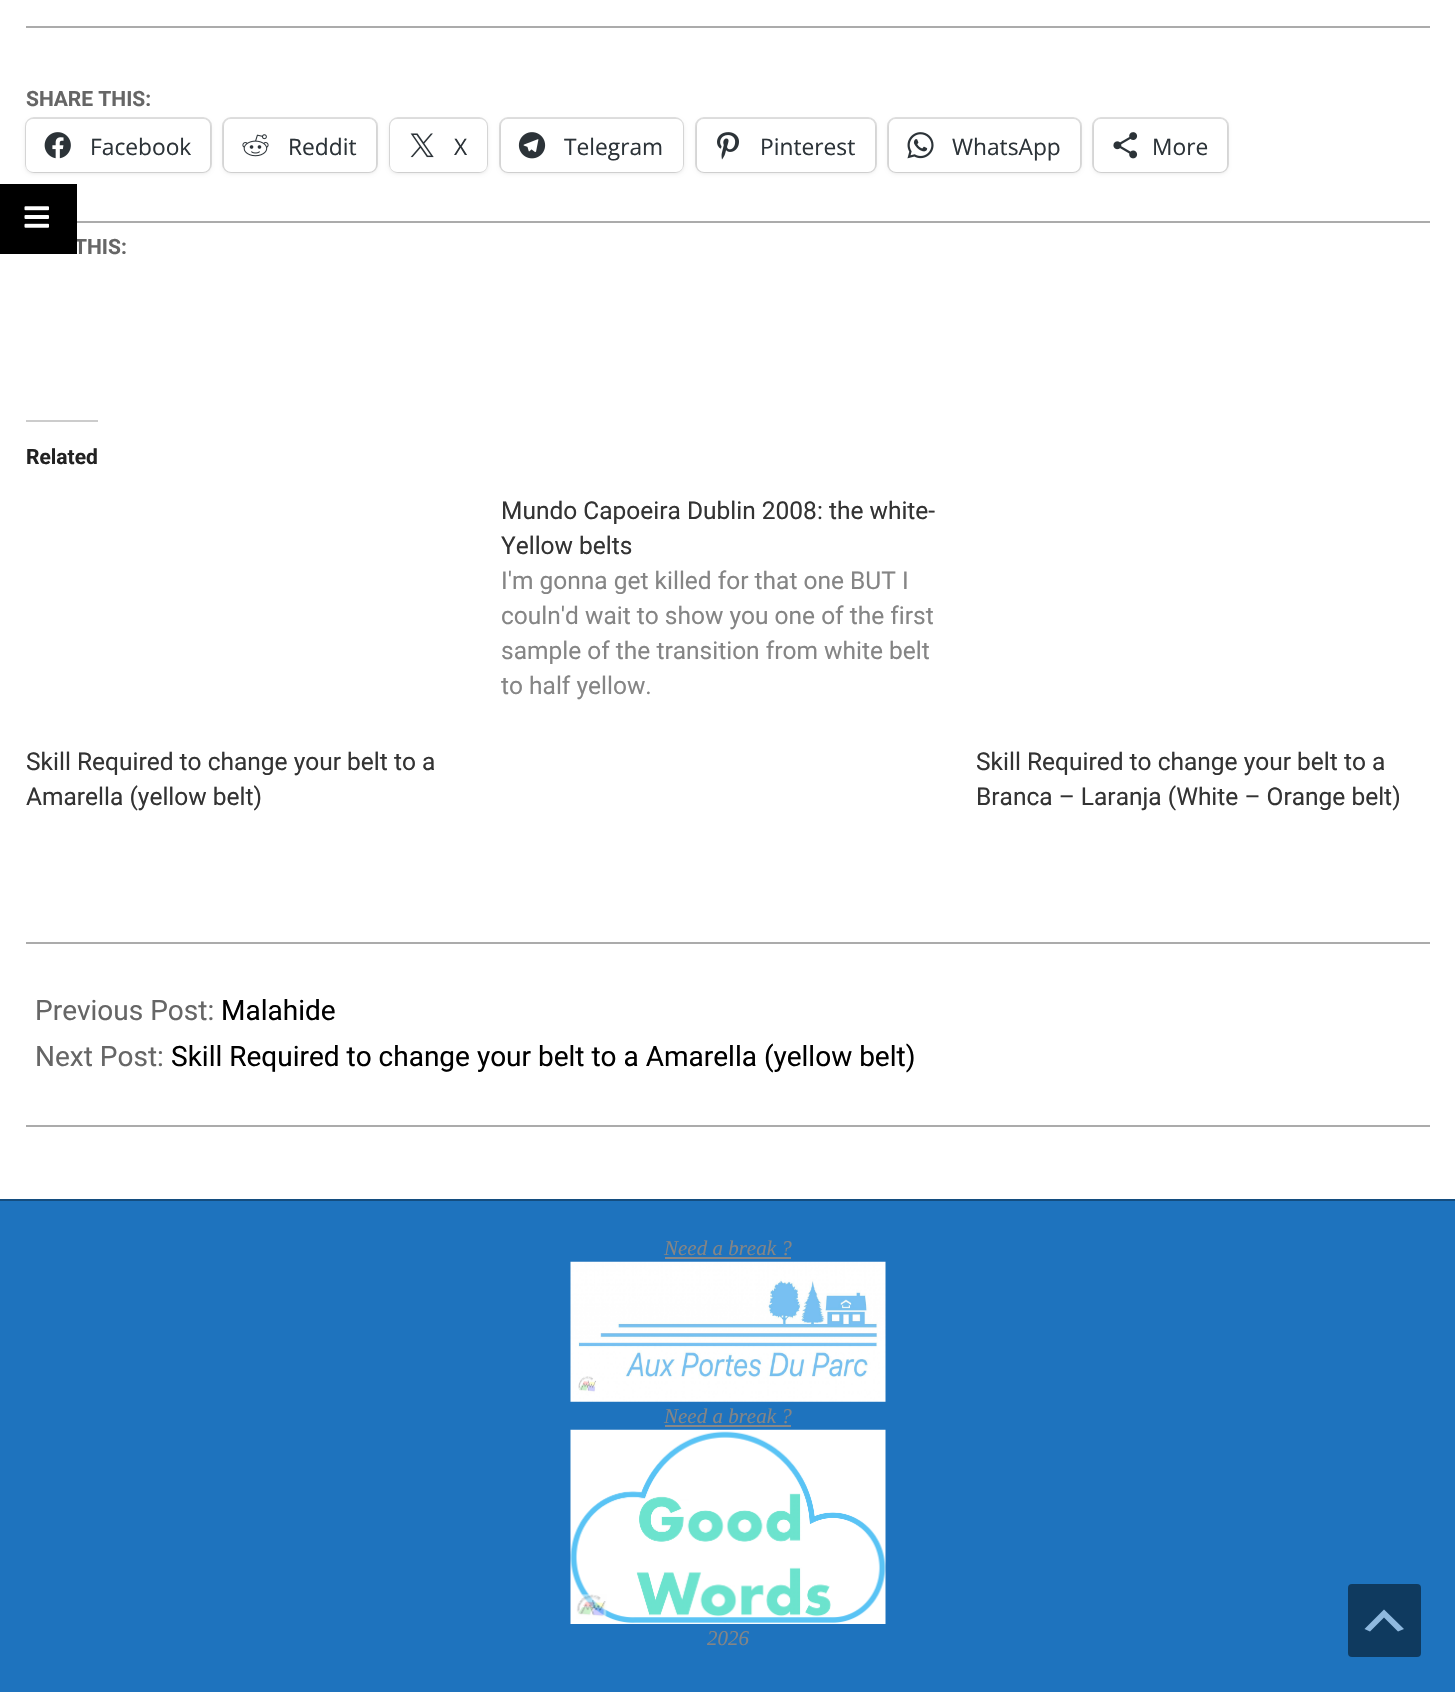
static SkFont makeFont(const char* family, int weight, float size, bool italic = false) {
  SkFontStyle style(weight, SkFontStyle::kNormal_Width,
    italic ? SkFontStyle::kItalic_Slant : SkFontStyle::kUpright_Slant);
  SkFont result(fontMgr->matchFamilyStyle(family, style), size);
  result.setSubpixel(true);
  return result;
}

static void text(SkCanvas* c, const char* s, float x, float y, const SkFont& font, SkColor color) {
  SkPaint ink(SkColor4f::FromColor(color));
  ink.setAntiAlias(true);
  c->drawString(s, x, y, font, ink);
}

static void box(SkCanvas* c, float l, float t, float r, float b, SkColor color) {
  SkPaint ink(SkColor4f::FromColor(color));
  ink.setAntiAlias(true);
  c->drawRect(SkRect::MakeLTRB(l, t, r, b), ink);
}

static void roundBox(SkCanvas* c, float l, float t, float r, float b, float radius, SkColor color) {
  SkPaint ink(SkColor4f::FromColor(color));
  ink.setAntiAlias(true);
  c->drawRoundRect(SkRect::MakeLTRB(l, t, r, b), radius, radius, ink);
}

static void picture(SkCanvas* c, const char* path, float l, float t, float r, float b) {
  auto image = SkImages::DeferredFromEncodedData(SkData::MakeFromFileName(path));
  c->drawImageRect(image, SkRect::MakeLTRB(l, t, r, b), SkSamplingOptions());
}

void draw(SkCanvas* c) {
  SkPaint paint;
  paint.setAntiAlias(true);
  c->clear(0xff1e73be);
  box(c, 0, 0, 1455, 1199, 0xffffffff);
  box(c, 26, 942, 1430, 944, 0xffababab);
  box(c, 26, 26, 1430, 28, 0xffababab);
  SkFont face1 = makeFont("Roboto", 700, 21);
  text(c, "SHARE THIS:", 26, 106, face1, 0xff666666);
  paint.setStyle(SkPaint::kStroke_Style);
  paint.setStrokeWidth(2);
  paint.setColor(0xffe0e0e0);
  c->drawRoundRect(SkRect::MakeLTRB(26, 118, 211, 172), 8, 8, paint);
  paint.setStyle(SkPaint::kFill_Style);
  paint.setColor(0x1f000000);
  paint.setMaskFilter(SkMaskFilter::MakeBlur(kNormal_SkBlurStyle, 2));
  c->drawRoundRect(SkRect::MakeLTRB(26, 121, 210, 173), 7, 7, paint);
  paint.setMaskFilter(nullptr);
  roundBox(c, 26, 119, 210, 172, 7, 0xffffffff);
  picture(c, "img_01.png", 44, 132, 71, 159);
  SkFont face2 = makeFont("Open Sans", 400, 22.75f);
  text(c, "Facebook", 90, 155, face2, 0xff2c3338);
  paint.setStyle(SkPaint::kStroke_Style);
  paint.setColor(0xffe0e0e0);
  c->drawRoundRect(SkRect::MakeLTRB(223, 118, 377, 172), 8, 8, paint);
  paint.setStyle(SkPaint::kFill_Style);
  paint.setColor(0x1f000000);
  paint.setMaskFilter(SkMaskFilter::MakeBlur(kNormal_SkBlurStyle, 2));
  c->drawRoundRect(SkRect::MakeLTRB(224, 121, 376, 173), 7, 7, paint);
  paint.setMaskFilter(nullptr);
  roundBox(c, 224, 119, 376, 172, 7, 0xffffffff);
  picture(c, "img_02.png", 242, 134, 269, 157);
  text(c, "Reddit", 288, 155, face2, 0xff2c3338);
  paint.setStyle(SkPaint::kStroke_Style);
  paint.setColor(0xffe0e0e0);
  c->drawRoundRect(SkRect::MakeLTRB(390, 118, 487, 172), 8, 8, paint);
  paint.setStyle(SkPaint::kFill_Style);
  paint.setColor(0x1f000000);
  paint.setMaskFilter(SkMaskFilter::MakeBlur(kNormal_SkBlurStyle, 2));
  c->drawRoundRect(SkRect::MakeLTRB(390, 121, 487, 173), 7, 7, paint);
  paint.setMaskFilter(nullptr);
  roundBox(c, 390, 119, 487, 172, 7, 0xffffffff);
  picture(c, "img_03.png", 410, 133, 434, 158);
  text(c, "X", 454, 155, face2, 0xff2c3338);
  paint.setStyle(SkPaint::kStroke_Style);
  paint.setColor(0xffe0e0e0);
  c->drawRoundRect(SkRect::MakeLTRB(500, 118, 683, 172), 8, 8, paint);
  paint.setStyle(SkPaint::kFill_Style);
  paint.setColor(0x1f000000);
  paint.setMaskFilter(SkMaskFilter::MakeBlur(kNormal_SkBlurStyle, 2));
  c->drawRoundRect(SkRect::MakeLTRB(501, 121, 683, 173), 7, 7, paint);
  paint.setMaskFilter(nullptr);
  roundBox(c, 501, 119, 683, 172, 7, 0xffffffff);
  picture(c, "img_04.png", 518, 132, 546, 159);
  text(c, "Telegram", 564, 155, face2, 0xff2c3338);
  paint.setStyle(SkPaint::kStroke_Style);
  paint.setColor(0xffe0e0e0);
  c->drawRoundRect(SkRect::MakeLTRB(696, 118, 876, 172), 8, 8, paint);
  paint.setStyle(SkPaint::kFill_Style);
  paint.setColor(0x1f000000);
  paint.setMaskFilter(SkMaskFilter::MakeBlur(kNormal_SkBlurStyle, 2));
  c->drawRoundRect(SkRect::MakeLTRB(697, 121, 875, 173), 7, 7, paint);
  paint.setMaskFilter(nullptr);
  roundBox(c, 697, 119, 875, 172, 7, 0xffffffff);
  picture(c, "img_05.png", 717, 132, 739, 160);
  text(c, "Pinterest", 760, 155, face2, 0xff2c3338);
  paint.setStyle(SkPaint::kStroke_Style);
  paint.setColor(0xffe0e0e0);
  c->drawRoundRect(SkRect::MakeLTRB(888, 118, 1081, 172), 8, 8, paint);
  paint.setStyle(SkPaint::kFill_Style);
  paint.setColor(0x1f000000);
  paint.setMaskFilter(SkMaskFilter::MakeBlur(kNormal_SkBlurStyle, 2));
  c->drawRoundRect(SkRect::MakeLTRB(889, 121, 1080, 173), 7, 7, paint);
  paint.setMaskFilter(nullptr);
  roundBox(c, 889, 119, 1080, 172, 7, 0xffffffff);
  picture(c, "img_06.png", 907, 132, 934, 159);
  text(c, "WhatsApp", 952, 155, face2, 0xff2c3338);
  paint.setStyle(SkPaint::kStroke_Style);
  paint.setColor(0xffe0e0e0);
  c->drawRoundRect(SkRect::MakeLTRB(1093, 118, 1228, 172), 8, 8, paint);
  paint.setStyle(SkPaint::kFill_Style);
  paint.setColor(0x1f000000);
  paint.setMaskFilter(SkMaskFilter::MakeBlur(kNormal_SkBlurStyle, 2));
  c->drawRoundRect(SkRect::MakeLTRB(1094, 121, 1227, 173), 7, 7, paint);
  paint.setMaskFilter(nullptr);
  roundBox(c, 1094, 119, 1227, 172, 7, 0xffffffff);
  picture(c, "img_07.png", 1113, 132, 1138, 159);
  text(c, "More", 1152, 155, face2, 0xff2c3338);
  box(c, 77, 221, 1430, 223, 0xffababab);
  text(c, "THIS:", 74, 254, face1, 0xff666666);
  box(c, 26, 420, 98, 422, 0xffcccccc);
  text(c, "Related", 26, 464, face1, 0xff222222);
  SkFont face3 = makeFont("Roboto", 400, 24.5f);
  text(c, "Mundo Capoeira Dublin 2008: the white-", 501, 519, face3, 0xff333333);
  text(c, "Yellow belts", 501, 554, face3, 0xff333333);
  text(c, "I'm gonna get killed for that one BUT I", 501, 589, face3, 0xff858585);
  text(c, "couln'd wait to show you one of the first", 501, 624, face3, 0xff858585);
  text(c, "sample of the transition from white belt", 501, 659, face3, 0xff858585);
  text(c, "to half yellow.", 501, 694, face3, 0xff858585);
  text(c, "Skill Required to change your belt to a", 26, 770, face3, 0xff333333);
  text(c, "Amarella (yellow belt)", 26, 805, face3, 0xff333333);
  text(c, "Skill Required to change your belt to a", 976, 770, face3, 0xff333333);
  text(c, "Branca – Laranja (White – Orange belt)", 976, 805, face3, 0xff333333);
  box(c, 26, 1125, 1430, 1127, 0xffababab);
  SkFont face4 = makeFont("Roboto", 400, 28);
  text(c, "Previous Post:", 35, 1020, face4, 0xff666666);
  text(c, "Malahide", 221, 1020, face4, 0xff000000);
  text(c, "Next Post:", 35, 1066, face4, 0xff666666);
  text(c, "Skill Required to change your belt to a Amarella (yellow belt)", 171, 1066, face4, 0xff000000);
  box(c, 0, 184, 77, 254, 0xff000000);
  picture(c, "img_08.png", 24, 206, 49, 228);
  box(c, 0, 1199, 1455, 1201, 0xff144d7f);
  SkFont face5 = makeFont("Liberation Serif", 400, 21, true);
  text(c, "Need a break ?", 664, 1255, face5, 0xff858585);
  box(c, 665, 1257, 791, 1259, 0xff888888);
  picture(c, "img_09.png", 570, 1261, 886, 1402);
  text(c, "Need a break ?", 664, 1423, face5, 0xff858585);
  box(c, 665, 1425, 791, 1427, 0xff888888);
  picture(c, "img_10.png", 570, 1429, 886, 1624);
  text(c, "2026", 707, 1645, face5, 0xff858585);
  roundBox(c, 1348, 1584, 1421, 1657, 4, 0xff0f3a5f);
  paint.setColor(0xff8fb9df);
  c->drawPath(SkPathBuilder().moveTo(1398, 1631.5f).lineTo(1384, 1617.5f).lineTo(1370, 1631.5f).lineTo(1364.5f, 1629).lineTo(1384, 1609.5f).lineTo(1404, 1629).close().detach(), paint);
}
